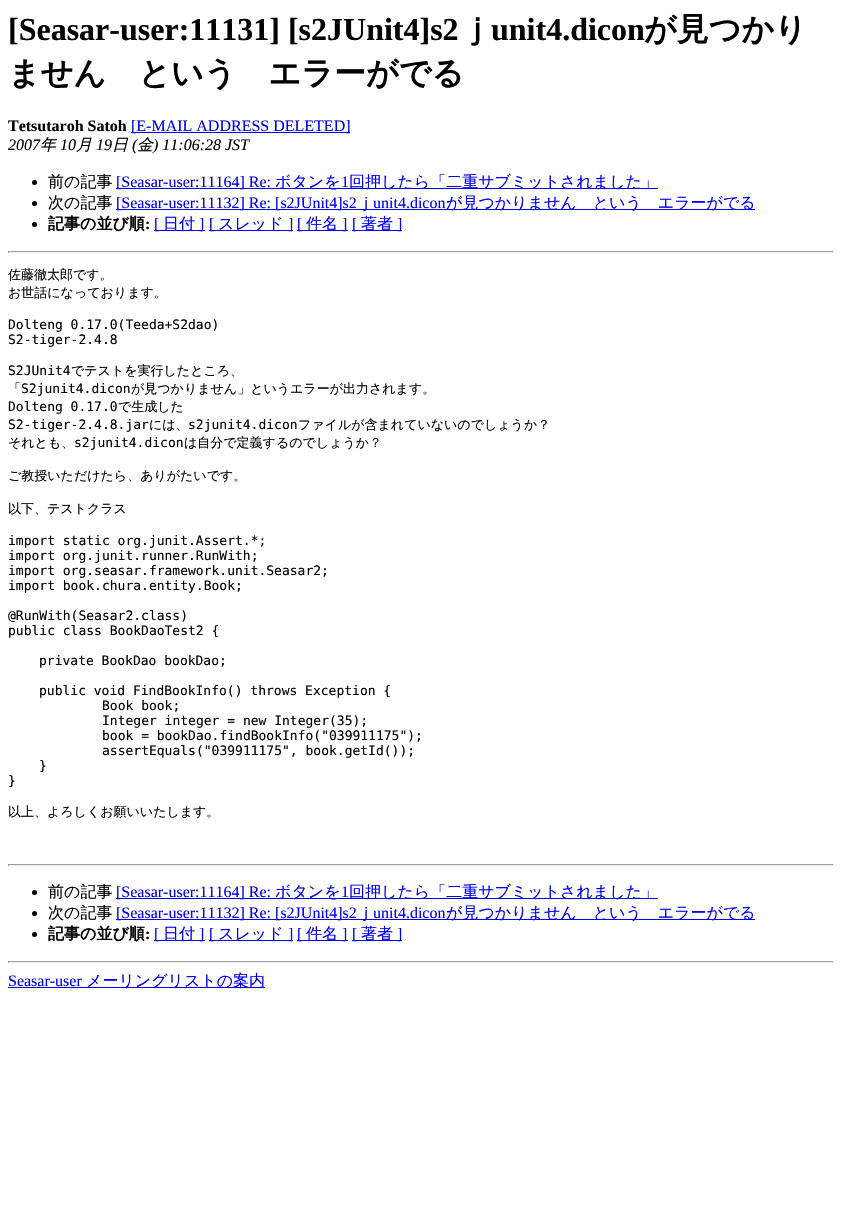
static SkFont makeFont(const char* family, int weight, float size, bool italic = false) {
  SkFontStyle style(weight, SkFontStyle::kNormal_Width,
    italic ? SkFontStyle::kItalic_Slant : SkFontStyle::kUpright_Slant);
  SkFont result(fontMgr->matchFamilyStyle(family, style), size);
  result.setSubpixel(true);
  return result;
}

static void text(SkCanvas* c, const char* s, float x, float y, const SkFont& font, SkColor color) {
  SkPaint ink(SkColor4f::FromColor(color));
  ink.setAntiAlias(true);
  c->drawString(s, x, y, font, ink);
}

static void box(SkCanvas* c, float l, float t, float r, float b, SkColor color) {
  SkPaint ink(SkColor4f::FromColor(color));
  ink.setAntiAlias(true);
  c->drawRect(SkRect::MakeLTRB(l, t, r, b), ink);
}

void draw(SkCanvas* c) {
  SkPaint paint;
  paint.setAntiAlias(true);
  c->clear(0xffffffff);
  SkFont face1 = makeFont("Liberation Serif", 700, 32);
  text(c, "[Seasar-user:11131] [s2JUnit4]s2", 8, 40, face1, 0xff000000);
  SkFont face2 = makeFont("WenQuanYi Zen Hei", 700, 32);
  text(c, "ｊ", 459, 40, face2, 0xff000000);
  text(c, "unit4.dicon", 491, 40, face1, 0xff000000);
  text(c, "が見つかり", 644, 40, face2, 0xff000000);
  text(c, "ません　という　エラーがでる", 8, 84, face2, 0xff000000);
  SkFont face3 = makeFont("Liberation Serif", 700, 16);
  text(c, "Tetsutaroh Satoh", 8, 131, face3, 0xff000000);
  box(c, 131, 132, 350, 133, 0xff0000ee);
  SkFont face4 = makeFont("Liberation Serif", 400, 16);
  text(c, "[E-MAIL ADDRESS DELETED]", 131, 131, face4, 0xff0000ee);
  SkFont face5 = makeFont("Liberation Serif", 400, 16, true);
  text(c, "2007", 8, 150, face5, 0xff000000);
  SkFont face6 = makeFont("WenQuanYi Zen Hei", 500, 16, true);
  text(c, "年", 40, 150, face6, 0xff000000);
  text(c, "10", 60, 150, face5, 0xff000000);
  text(c, "月", 76, 150, face6, 0xff000000);
  text(c, "19", 96, 150, face5, 0xff000000);
  text(c, "日", 112, 150, face6, 0xff000000);
  text(c, "(", 132, 150, face5, 0xff000000);
  text(c, "金", 137, 150, face6, 0xff000000);
  text(c, ") 11:06:28 JST", 153, 150, face5, 0xff000000);
  paint.setColor(0xff000000);
  c->drawCircle(34.5f, 182.5f, 2.5f, paint);
  SkFont face7 = makeFont("WenQuanYi Zen Hei", 500, 16);
  text(c, "前の記事", 48, 187, face7, 0xff000000);
  box(c, 116, 188, 658, 189, 0xff0000ee);
  text(c, "[Seasar-user:11164] Re:", 116, 187, face4, 0xff0000ee);
  text(c, "ボタンを", 275, 187, face7, 0xff0000ee);
  text(c, "1", 341, 187, face4, 0xff0000ee);
  text(c, "回押したら「二重サブミットされました」", 349, 187, face7, 0xff0000ee);
  c->drawCircle(34.5f, 203.5f, 2.5f, paint);
  text(c, "次の記事", 48, 208, face7, 0xff000000);
  box(c, 116, 209, 755, 210, 0xff0000ee);
  text(c, "[Seasar-user:11132] Re: [s2JUnit4]s2", 116, 208, face4, 0xff0000ee);
  text(c, "ｊ", 357, 208, face7, 0xff0000ee);
  text(c, "unit4.dicon", 373, 208, face4, 0xff0000ee);
  text(c, "が見つかりません　という　エラーがでる", 446, 208, face7, 0xff0000ee);
  c->drawCircle(34.5f, 224.5f, 2.5f, paint);
  SkFont face8 = makeFont("WenQuanYi Zen Hei", 700, 16);
  text(c, "記事の並び順", 48, 229, face8, 0xff000000);
  text(c, ":", 145, 229, face3, 0xff000000);
  box(c, 154, 230, 205, 231, 0xff0000ee);
  text(c, "[", 154, 229, face4, 0xff0000ee);
  text(c, "日付", 163, 229, face7, 0xff0000ee);
  text(c, "]", 199, 229, face4, 0xff0000ee);
  box(c, 209, 230, 293, 231, 0xff0000ee);
  text(c, "[", 209, 229, face4, 0xff0000ee);
  text(c, "スレッド", 218, 229, face7, 0xff0000ee);
  text(c, "]", 288, 229, face4, 0xff0000ee);
  box(c, 297, 230, 348, 231, 0xff0000ee);
  text(c, "[", 297, 229, face4, 0xff0000ee);
  text(c, "件名", 306, 229, face7, 0xff0000ee);
  text(c, "]", 342, 229, face4, 0xff0000ee);
  box(c, 352, 230, 402, 231, 0xff0000ee);
  text(c, "[", 352, 229, face4, 0xff0000ee);
  text(c, "著者", 361, 229, face7, 0xff0000ee);
  text(c, "]", 397, 229, face4, 0xff0000ee);
  box(c, 8, 251, 834, 252, 0xff9f9f9f);
  box(c, 833, 251, 834, 253, 0xffeeeeee);
  box(c, 8, 252, 834, 253, 0xffeeeeee);
  box(c, 8, 251, 9, 253, 0xff9f9f9f);
  SkFont face9 = makeFont("WenQuanYi Zen Hei", 500, 13);
  text(c, "佐藤徹太郎です。", 8, 279, face9, 0xff000000);
  text(c, "お世話になっております。", 8, 297, face9, 0xff000000);
  SkFont face10 = makeFont("DejaVu Sans Mono", 400, 13);
  text(c, "Dolteng 0.17.0(Teeda+S2dao)", 8, 329, face10, 0xff000000);
  text(c, "S2-tiger-2.4.8", 8, 344, face10, 0xff000000);
  text(c, "S2JUnit4", 8, 375, face10, 0xff000000);
  text(c, "でテストを実行したところ、", 71, 375, face9, 0xff000000);
  text(c, "「", 8, 393, face9, 0xff000000);
  text(c, "S2junit4.dicon", 21, 393, face10, 0xff000000);
  text(c, "が見つかりません」というエラーが出力されます。", 131, 393, face9, 0xff000000);
  text(c, "Dolteng 0.17.0", 8, 411, face10, 0xff000000);
  text(c, "で生成した", 118, 411, face9, 0xff000000);
  text(c, "S2-tiger-2.4.8.jar", 8, 429, face10, 0xff000000);
  text(c, "には、", 149, 429, face9, 0xff000000);
  text(c, "s2junit4.dicon", 188, 429, face10, 0xff000000);
  text(c, "ファイルが含まれていないのでしょうか？", 298, 429, face9, 0xff000000);
  text(c, "それとも、", 8, 447, face9, 0xff000000);
  text(c, "s2junit4.dicon", 74, 447, face10, 0xff000000);
  text(c, "は自分で定義するのでしょうか？", 184, 447, face9, 0xff000000);
  text(c, "ご教授いただけたら、ありがたいです。", 8, 480, face9, 0xff000000);
  text(c, "以下、テストクラス", 8, 513, face9, 0xff000000);
  text(c, "import static org.junit.Assert.*;", 8, 545, face10, 0xff000000);
  text(c, "import org.junit.runner.RunWith;", 8, 560, face10, 0xff000000);
  text(c, "import org.seasar.framework.unit.Seasar2;", 8, 575, face10, 0xff000000);
  text(c, "import book.chura.entity.Book;", 8, 590, face10, 0xff000000);
  text(c, "@RunWith(Seasar2.class)", 8, 620, face10, 0xff000000);
  text(c, "public class BookDaoTest2 {", 8, 635, face10, 0xff000000);
  text(c, "private BookDao bookDao;", 39, 665, face10, 0xff000000);
  text(c, "public void FindBookInfo() throws Exception {", 39, 695, face10, 0xff000000);
  text(c, "Book book;", 102, 710, face10, 0xff000000);
  text(c, "Integer integer = new Integer(35);", 102, 725, face10, 0xff000000);
  text(c, "book = bookDao.findBookInfo(\"039911175\");", 102, 740, face10, 0xff000000);
  text(c, "assertEquals(\"039911175\", book.getId());", 102, 755, face10, 0xff000000);
  text(c, "}", 39, 770, face10, 0xff000000);
  text(c, "}", 8, 785, face10, 0xff000000);
  text(c, "以上、よろしくお願いいたします。", 8, 816, face9, 0xff000000);
  box(c, 8, 864, 834, 865, 0xff9f9f9f);
  box(c, 833, 864, 834, 866, 0xffeeeeee);
  box(c, 8, 865, 834, 866, 0xffeeeeee);
  box(c, 8, 864, 9, 866, 0xff9f9f9f);
  c->drawCircle(34.5f, 892.5f, 2.5f, paint);
  text(c, "前の記事", 48, 897, face7, 0xff000000);
  box(c, 116, 898, 658, 899, 0xff0000ee);
  text(c, "[Seasar-user:11164] Re:", 116, 897, face4, 0xff0000ee);
  text(c, "ボタンを", 275, 897, face7, 0xff0000ee);
  text(c, "1", 341, 897, face4, 0xff0000ee);
  text(c, "回押したら「二重サブミットされました」", 349, 897, face7, 0xff0000ee);
  c->drawCircle(34.5f, 913.5f, 2.5f, paint);
  text(c, "次の記事", 48, 918, face7, 0xff000000);
  box(c, 116, 919, 755, 920, 0xff0000ee);
  text(c, "[Seasar-user:11132] Re: [s2JUnit4]s2", 116, 918, face4, 0xff0000ee);
  text(c, "ｊ", 357, 918, face7, 0xff0000ee);
  text(c, "unit4.dicon", 373, 918, face4, 0xff0000ee);
  text(c, "が見つかりません　という　エラーがでる", 446, 918, face7, 0xff0000ee);
  c->drawCircle(34.5f, 934.5f, 2.5f, paint);
  text(c, "記事の並び順", 48, 939, face8, 0xff000000);
  text(c, ":", 145, 939, face3, 0xff000000);
  box(c, 154, 940, 205, 941, 0xff0000ee);
  text(c, "[", 154, 939, face4, 0xff0000ee);
  text(c, "日付", 163, 939, face7, 0xff0000ee);
  text(c, "]", 199, 939, face4, 0xff0000ee);
  box(c, 209, 940, 293, 941, 0xff0000ee);
  text(c, "[", 209, 939, face4, 0xff0000ee);
  text(c, "スレッド", 218, 939, face7, 0xff0000ee);
  text(c, "]", 288, 939, face4, 0xff0000ee);
  box(c, 297, 940, 348, 941, 0xff0000ee);
  text(c, "[", 297, 939, face4, 0xff0000ee);
  text(c, "件名", 306, 939, face7, 0xff0000ee);
  text(c, "]", 342, 939, face4, 0xff0000ee);
  box(c, 352, 940, 402, 941, 0xff0000ee);
  text(c, "[", 352, 939, face4, 0xff0000ee);
  text(c, "著者", 361, 939, face7, 0xff0000ee);
  text(c, "]", 397, 939, face4, 0xff0000ee);
  box(c, 8, 961, 834, 962, 0xff9f9f9f);
  box(c, 833, 961, 834, 963, 0xffeeeeee);
  box(c, 8, 962, 834, 963, 0xffeeeeee);
  box(c, 8, 961, 9, 963, 0xff9f9f9f);
  text(c, "Seasar-user", 8, 986, face4, 0xff0000ee);
  box(c, 8, 987, 265, 988, 0xff0000ee);
  text(c, "メーリングリストの案内", 86, 986, face7, 0xff0000ee);
}
